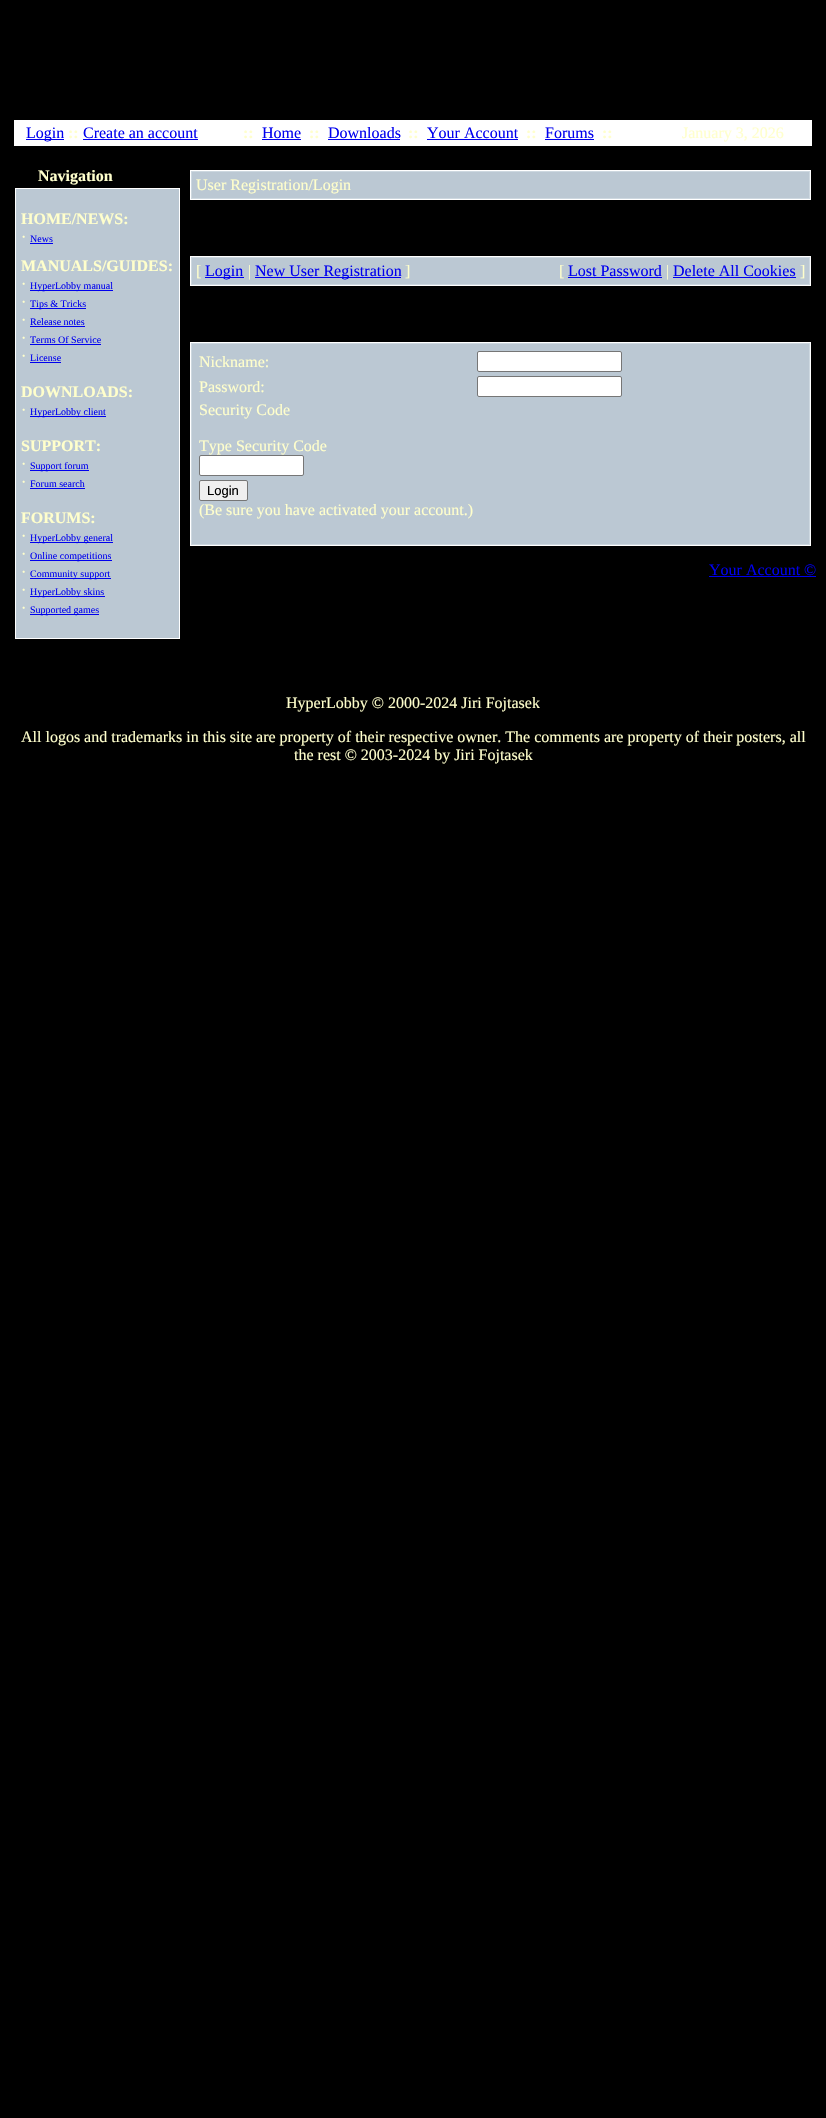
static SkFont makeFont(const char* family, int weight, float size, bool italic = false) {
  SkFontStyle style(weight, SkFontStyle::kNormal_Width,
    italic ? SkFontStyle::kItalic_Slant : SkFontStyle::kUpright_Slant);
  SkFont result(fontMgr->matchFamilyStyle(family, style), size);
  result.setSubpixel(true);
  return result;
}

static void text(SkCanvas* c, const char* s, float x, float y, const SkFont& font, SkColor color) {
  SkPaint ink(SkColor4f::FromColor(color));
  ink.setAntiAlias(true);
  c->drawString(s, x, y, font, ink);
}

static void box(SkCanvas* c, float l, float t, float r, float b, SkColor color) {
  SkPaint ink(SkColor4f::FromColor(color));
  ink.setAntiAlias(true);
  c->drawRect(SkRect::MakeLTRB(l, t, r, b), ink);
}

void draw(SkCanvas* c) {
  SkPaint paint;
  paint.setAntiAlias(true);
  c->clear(0xff000000);
  box(c, 14, 120, 812, 146, 0xffffffff);
  box(c, 26, 139, 64, 140, 0xff0000ee);
  SkFont face1 = makeFont("Liberation Serif", 400, 16);
  text(c, "Login", 26, 138, face1, 0xff0000ee);
  SkFont face2 = makeFont("Liberation Serif", 700, 16);
  text(c, "::", 68, 138, face2, 0xffffffcc);
  text(c, "Create an account", 83, 138, face1, 0xff0000ee);
  box(c, 83, 139, 198, 140, 0xff0000ee);
  text(c, "::", 243, 138, face2, 0xffffffcc);
  text(c, "Home", 262, 138, face1, 0xff0000ee);
  box(c, 262, 139, 301, 140, 0xff0000ee);
  text(c, "::", 309, 138, face2, 0xffffffcc);
  text(c, "Downloads", 328, 138, face1, 0xff0000ee);
  box(c, 328, 139, 400, 140, 0xff0000ee);
  text(c, "::", 408, 138, face2, 0xffffffcc);
  text(c, "Your Account", 427, 138, face1, 0xff0000ee);
  box(c, 427, 139, 518, 140, 0xff0000ee);
  text(c, "::", 526, 138, face2, 0xffffffcc);
  text(c, "Forums", 545, 138, face1, 0xff0000ee);
  box(c, 545, 139, 594, 140, 0xff0000ee);
  text(c, "::", 602, 138, face2, 0xffffffcc);
  text(c, "January 3, 2026", 682, 138, face1, 0xffffffcc);
  text(c, "Navigation", 38, 181, face2, 0xffffffcc);
  box(c, 15, 188, 180, 639, 0xffffffff);
  box(c, 16, 189, 179, 638, 0xffbbc8d3);
  text(c, "HOME/NEWS:", 21, 224, face2, 0xffffffcc);
  text(c, "·", 21, 242, face1, 0xffffffcc);
  SkFont face3 = makeFont("Liberation Serif", 400, 10);
  text(c, "News", 30, 242, face3, 0xff0000ee);
  box(c, 30, 243, 53, 244, 0xff0000ee);
  text(c, "MANUALS/GUIDES:", 21, 271, face2, 0xffffffcc);
  text(c, "·", 21, 289, face1, 0xffffffcc);
  box(c, 30, 290, 113, 291, 0xff0000ee);
  text(c, "HyperLobby manual", 30, 289, face3, 0xff0000ee);
  text(c, "·", 21, 307, face1, 0xffffffcc);
  box(c, 30, 308, 86, 309, 0xff0000ee);
  text(c, "Tips & Tricks", 30, 307, face3, 0xff0000ee);
  text(c, "·", 21, 325, face1, 0xffffffcc);
  text(c, "Release notes", 30, 325, face3, 0xff0000ee);
  box(c, 30, 326, 85, 327, 0xff0000ee);
  text(c, "·", 21, 343, face1, 0xffffffcc);
  text(c, "Terms Of Service", 30, 343, face3, 0xff0000ee);
  box(c, 30, 344, 101, 345, 0xff0000ee);
  text(c, "·", 21, 361, face1, 0xffffffcc);
  text(c, "License", 30, 361, face3, 0xff0000ee);
  box(c, 30, 362, 61, 363, 0xff0000ee);
  text(c, "DOWNLOADS:", 21, 397, face2, 0xffffffcc);
  text(c, "·", 21, 415, face1, 0xffffffcc);
  box(c, 30, 416, 106, 417, 0xff0000ee);
  text(c, "HyperLobby client", 30, 415, face3, 0xff0000ee);
  text(c, "SUPPORT:", 21, 451, face2, 0xffffffcc);
  text(c, "·", 21, 469, face1, 0xffffffcc);
  box(c, 30, 470, 89, 471, 0xff0000ee);
  text(c, "Support forum", 30, 469, face3, 0xff0000ee);
  text(c, "·", 21, 487, face1, 0xffffffcc);
  text(c, "Forum search", 30, 487, face3, 0xff0000ee);
  box(c, 30, 488, 85, 489, 0xff0000ee);
  text(c, "FORUMS:", 21, 523, face2, 0xffffffcc);
  text(c, "·", 21, 541, face1, 0xffffffcc);
  box(c, 30, 542, 113, 543, 0xff0000ee);
  text(c, "HyperLobby general", 30, 541, face3, 0xff0000ee);
  text(c, "·", 21, 559, face1, 0xffffffcc);
  box(c, 30, 560, 112, 561, 0xff0000ee);
  text(c, "Online competitions", 30, 559, face3, 0xff0000ee);
  text(c, "·", 21, 577, face1, 0xffffffcc);
  box(c, 30, 578, 111, 579, 0xff0000ee);
  text(c, "Community support", 30, 577, face3, 0xff0000ee);
  text(c, "·", 21, 595, face1, 0xffffffcc);
  box(c, 30, 596, 105, 597, 0xff0000ee);
  text(c, "HyperLobby skins", 30, 595, face3, 0xff0000ee);
  text(c, "·", 21, 613, face1, 0xffffffcc);
  box(c, 30, 614, 99, 615, 0xff0000ee);
  text(c, "Supported games", 30, 613, face3, 0xff0000ee);
  box(c, 190, 170, 811, 200, 0xffffffff);
  box(c, 191, 171, 810, 199, 0xffcdd8e0);
  box(c, 192, 172, 809, 198, 0xffbbc8d3);
  text(c, "User Registration/Login", 196, 190, face1, 0xffffffcc);
  box(c, 190, 256, 811, 286, 0xffffffff);
  box(c, 191, 257, 810, 285, 0xffcdd8e0);
  box(c, 192, 258, 809, 284, 0xffbbc8d3);
  text(c, "[", 196, 276, face1, 0xffffffcc);
  box(c, 205, 277, 244, 278, 0xff0000ee);
  text(c, "Login", 205, 276, face1, 0xff0000ee);
  text(c, "|", 248, 276, face1, 0xffffffcc);
  box(c, 255, 277, 401, 278, 0xff0000ee);
  text(c, "New User Registration", 255, 276, face1, 0xff0000ee);
  text(c, "]", 405, 276, face1, 0xffffffcc);
  text(c, "[", 559, 276, face1, 0xffffffcc);
  text(c, "Lost Password", 568, 276, face1, 0xff0000ee);
  box(c, 568, 277, 662, 278, 0xff0000ee);
  text(c, "|", 666, 276, face1, 0xffffffcc);
  text(c, "Delete All Cookies", 673, 276, face1, 0xff0000ee);
  box(c, 673, 277, 796, 278, 0xff0000ee);
  text(c, "]", 800, 276, face1, 0xffffffcc);
  box(c, 190, 342, 811, 546, 0xffffffff);
  box(c, 191, 343, 810, 545, 0xffcdd8e0);
  box(c, 192, 344, 809, 544, 0xffbbc8d3);
  text(c, "Nickname:", 199, 367, face1, 0xffffffcc);
  paint.setColor(0xffffffff);
  c->drawRoundRect(SkRect::MakeLTRB(477.5f, 351.5f, 621.5f, 371.5f), 1.5f, 1.5f, paint);
  paint.setStyle(SkPaint::kStroke_Style);
  paint.setStrokeWidth(1);
  paint.setColor(0xff767676);
  c->drawRoundRect(SkRect::MakeLTRB(477.5f, 351.5f, 621.5f, 371.5f), 1.5f, 1.5f, paint);
  text(c, "Password:", 199, 392, face1, 0xffffffcc);
  paint.setStyle(SkPaint::kFill_Style);
  paint.setColor(0xffffffff);
  c->drawRoundRect(SkRect::MakeLTRB(477.5f, 376.5f, 621.5f, 396.5f), 1.5f, 1.5f, paint);
  paint.setStyle(SkPaint::kStroke_Style);
  paint.setColor(0xff767676);
  c->drawRoundRect(SkRect::MakeLTRB(477.5f, 376.5f, 621.5f, 396.5f), 1.5f, 1.5f, paint);
  text(c, "Security Code", 199, 415, face1, 0xffffffcc);
  text(c, "Type Security Code", 199, 451, face1, 0xffffffcc);
  paint.setStyle(SkPaint::kFill_Style);
  paint.setColor(0xffffffff);
  c->drawRoundRect(SkRect::MakeLTRB(199.5f, 455.5f, 303.5f, 475.5f), 1.5f, 1.5f, paint);
  paint.setStyle(SkPaint::kStroke_Style);
  paint.setColor(0xff767676);
  c->drawRoundRect(SkRect::MakeLTRB(199.5f, 455.5f, 303.5f, 475.5f), 1.5f, 1.5f, paint);
  paint.setStyle(SkPaint::kFill_Style);
  paint.setColor(0xffefefef);
  c->drawRoundRect(SkRect::MakeLTRB(199.5f, 480.5f, 247.5f, 500.5f), 1.5f, 1.5f, paint);
  paint.setStyle(SkPaint::kStroke_Style);
  paint.setColor(0xff767676);
  c->drawRoundRect(SkRect::MakeLTRB(199.5f, 480.5f, 247.5f, 500.5f), 1.5f, 1.5f, paint);
  SkFont face4 = makeFont("Liberation Sans", 400, 13);
  text(c, "Login", 207, 495, face4, 0xff000000);
  text(c, "(Be sure you have activated your account.)", 199, 515, face1, 0xffffffcc);
  text(c, "Your Account ©", 709, 575, face1, 0xff0000ee);
  box(c, 709, 576, 816, 577, 0xff0000ee);
  text(c, "HyperLobby © 2000-2024 Jiri Fojtasek", 286, 708, face1, 0xffffffcc);
  text(c, "All logos and trademarks in this site are property of their respective owner. The comments are property of their posters, all", 21, 742, face1, 0xffffffcc);
  text(c, "the rest © 2003-2024 by Jiri Fojtasek", 294, 760, face1, 0xffffffcc);
}
